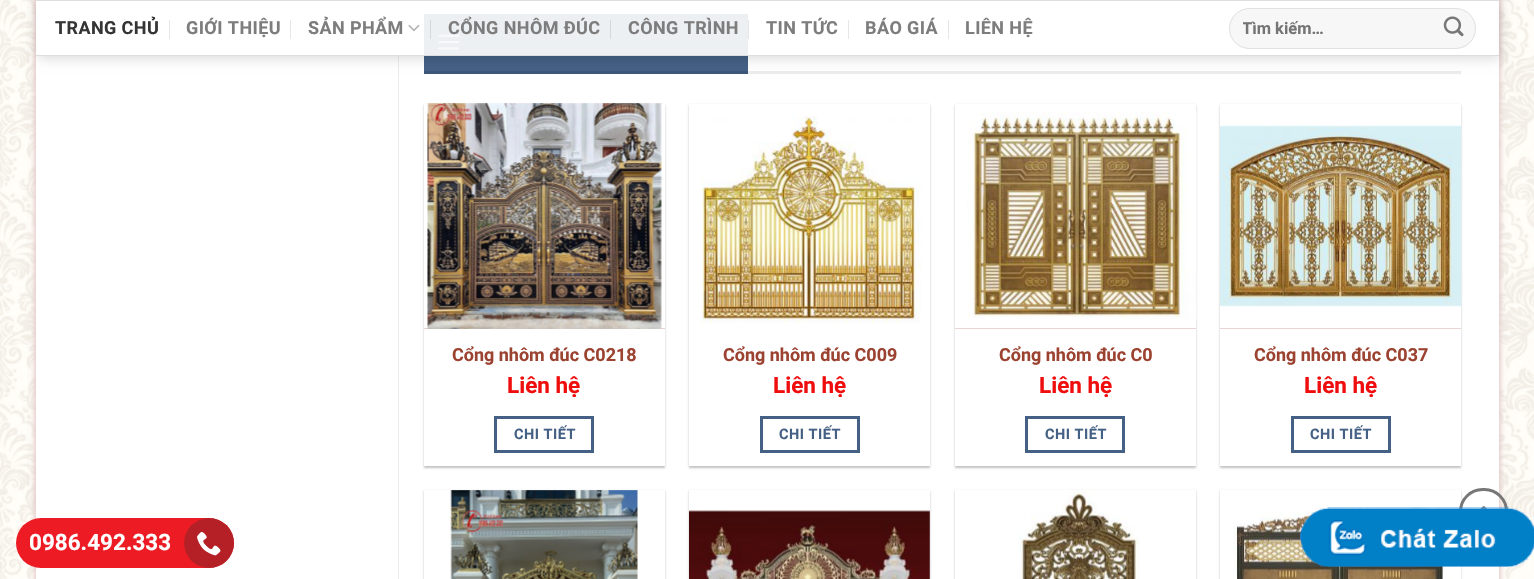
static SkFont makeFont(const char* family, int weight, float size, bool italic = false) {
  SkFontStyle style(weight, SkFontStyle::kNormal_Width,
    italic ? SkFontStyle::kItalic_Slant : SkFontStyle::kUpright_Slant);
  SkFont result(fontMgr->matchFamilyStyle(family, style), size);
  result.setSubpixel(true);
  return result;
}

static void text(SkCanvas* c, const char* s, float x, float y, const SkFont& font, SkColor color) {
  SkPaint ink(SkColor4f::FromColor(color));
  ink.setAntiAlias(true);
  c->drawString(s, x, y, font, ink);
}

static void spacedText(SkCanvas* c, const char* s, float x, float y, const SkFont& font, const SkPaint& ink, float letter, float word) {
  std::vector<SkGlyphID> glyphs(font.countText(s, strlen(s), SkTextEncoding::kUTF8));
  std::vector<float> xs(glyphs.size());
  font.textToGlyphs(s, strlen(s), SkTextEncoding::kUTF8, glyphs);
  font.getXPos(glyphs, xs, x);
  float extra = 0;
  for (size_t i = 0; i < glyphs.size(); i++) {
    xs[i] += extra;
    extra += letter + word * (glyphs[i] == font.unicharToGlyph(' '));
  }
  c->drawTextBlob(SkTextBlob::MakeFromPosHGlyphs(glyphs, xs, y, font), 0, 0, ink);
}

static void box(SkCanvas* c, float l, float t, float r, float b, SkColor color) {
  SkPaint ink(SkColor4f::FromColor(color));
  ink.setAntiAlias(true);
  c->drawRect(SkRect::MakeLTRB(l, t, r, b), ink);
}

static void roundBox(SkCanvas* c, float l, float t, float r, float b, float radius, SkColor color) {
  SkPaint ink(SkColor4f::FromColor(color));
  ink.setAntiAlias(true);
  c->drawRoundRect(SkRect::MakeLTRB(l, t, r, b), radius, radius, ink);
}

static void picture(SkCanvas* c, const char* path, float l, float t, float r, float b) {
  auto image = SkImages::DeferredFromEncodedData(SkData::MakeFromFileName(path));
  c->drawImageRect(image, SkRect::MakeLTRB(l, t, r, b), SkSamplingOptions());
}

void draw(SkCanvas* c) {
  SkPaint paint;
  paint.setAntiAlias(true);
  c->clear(0xffffffff);
  picture(c, "img_01.png", 0, 0, 1534, 579);
  paint.setColor(0xffe4caca);
  paint.setMaskFilter(SkMaskFilter::MakeBlur(kNormal_SkBlurStyle, 3));
  c->drawRect(SkRect::MakeLTRB(36, -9, 1499, 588), paint);
  paint.setMaskFilter(nullptr);
  paint.setMaskFilter(SkMaskFilter::MakeBlur(kNormal_SkBlurStyle, 3));
  c->drawRect(SkRect::MakeLTRB(36, -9, 1499, 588), paint);
  paint.setMaskFilter(nullptr);
  box(c, 36, 1, 1499, 579, 0xffffffff);
  box(c, 398, 0, 399, 579, 0xffececec);
  box(c, 748, 71, 1461, 74, 0xffececec);
  box(c, 424, 14, 748, 71, 0xff446084);
  box(c, 424, 71, 748, 74, 0xff3d5677);
  picture(c, "img_04.png", 438, 34, 460, 50);
  c->save();
  c->clipPath(SkPathBuilder(SkPathFillType::kEvenOdd).moveTo(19, 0).lineTo(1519, 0).lineTo(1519, 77).lineTo(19, 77).close().moveTo(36, 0).lineTo(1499, 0).lineTo(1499, 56).lineTo(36, 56).close().detach(), true);
  paint.setColor(0x26000000);
  paint.setMaskFilter(SkMaskFilter::MakeBlur(kNormal_SkBlurStyle, 6));
  c->drawRect(SkRect::MakeLTRB(38, 1, 1500, 58), paint);
  paint.setMaskFilter(nullptr);
  c->restore();
  box(c, 36, 1, 1499, 55, 0xe6ffffff);
  box(c, 36, 0, 1499, 1, 0xffdddddd);
  box(c, 36, 55, 1499, 56, 0xffdddddd);
  SkFont face1 = makeFont("Roboto", 700, 18);
  paint.setColor(0xff353535);
  spacedText(c, "TRANG CHỦ", 55, 34, face1, paint, 0.4f, 0);
  box(c, 169, 20, 170, 39, 0xffe6e6e6);
  paint.setColor(0xff7d7d7d);
  spacedText(c, "GIỚI THIỆU", 186, 34, face1, paint, 0.4f, 0);
  box(c, 290, 20, 291, 39, 0xffe6e6e6);
  spacedText(c, "SẢN PHẨM", 308, 34, face1, paint, 0.4f, 0);
  picture(c, "img_02.png", 408, 24, 420, 32);
  box(c, 430, 20, 431, 39, 0xffd5d7da);
  spacedText(c, "CỔNG NHÔM ĐÚC", 448, 34, face1, paint, 0.4f, 0);
  box(c, 610, 20, 611, 39, 0x1a000000);
  spacedText(c, "CÔNG TRÌNH", 628, 34, face1, paint, 0.4f, 0);
  box(c, 748, 20, 749, 39, 0xffe6e6e6);
  spacedText(c, "TIN TỨC", 766, 34, face1, paint, 0.4f, 0);
  box(c, 848, 20, 849, 39, 0xffe6e6e6);
  spacedText(c, "BÁO GIÁ", 865, 34, face1, paint, 0.4f, 0);
  box(c, 948, 20, 949, 39, 0xffe6e6e6);
  spacedText(c, "LIÊN HỆ", 965, 34, face1, paint, 0.4f, 0);
  roundBox(c, 1229, 8, 1476, 49, 20.5f, 0xfff7f7f7);
  paint.setStyle(SkPaint::kStroke_Style);
  paint.setStrokeWidth(1);
  paint.setColor(0x17000000);
  c->drawRoundRect(SkRect::MakeLTRB(1229.5f, 8.5f, 1475.5f, 48.5f), 20, 20, paint);
  c->save();
  c->clipRect(SkRect::MakeLTRB(1243, 19, 1464, 38));
  SkFont face2 = makeFont("Roboto", 700, 16.5f);
  text(c, "Tìm kiếm…", 1242, 34, face2, 0xff757575);
  c->restore();
  picture(c, "img_03.png", 1443, 16, 1464, 37);
  c->save();
  c->clipPath(SkPathBuilder(SkPathFillType::kEvenOdd).moveTo(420, 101).lineTo(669, 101).lineTo(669, 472).lineTo(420, 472).close().moveTo(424, 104).lineTo(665, 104).lineTo(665, 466).lineTo(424, 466).close().detach(), true);
  paint.setStyle(SkPaint::kFill_Style);
  paint.setColor(0x3d000000);
  paint.setMaskFilter(SkMaskFilter::MakeBlur(kNormal_SkBlurStyle, 1));
  c->drawRect(SkRect::MakeLTRB(424, 105, 665, 468), paint);
  paint.setMaskFilter(nullptr);
  c->restore();
  box(c, 424, 328, 665, 329, 0xffe8d4d2);
  picture(c, "img_05.png", 427, 103, 662, 329);
  text(c, "Cổng nhôm đúc C0218", 452, 361, face1, 0xff9c4230);
  SkFont face3 = makeFont("Roboto", 700, 22.5f);
  text(c, "Liên hệ", 507, 393, face3, 0xffef0d0d);
  paint.setStyle(SkPaint::kStroke_Style);
  paint.setStrokeWidth(3);
  paint.setColor(0xff446084);
  c->drawRect(SkRect::MakeLTRB(495.5f, 417.5f, 592.5f, 451.5f), paint);
  SkFont face4 = makeFont("Roboto", 700, 14.5f);
  paint.setStyle(SkPaint::kFill_Style);
  spacedText(c, "CHI TIẾT", 514, 439, face4, paint, 0.5f, 0);
  c->save();
  c->clipPath(SkPathBuilder(SkPathFillType::kEvenOdd).moveTo(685, 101).lineTo(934, 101).lineTo(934, 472).lineTo(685, 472).close().moveTo(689, 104).lineTo(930, 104).lineTo(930, 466).lineTo(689, 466).close().detach(), true);
  paint.setColor(0x3d000000);
  paint.setMaskFilter(SkMaskFilter::MakeBlur(kNormal_SkBlurStyle, 1));
  c->drawRect(SkRect::MakeLTRB(689, 105, 930, 468), paint);
  paint.setMaskFilter(nullptr);
  c->restore();
  picture(c, "img_06.png", 689, 116, 930, 329);
  text(c, "Cổng nhôm đúc C009", 723, 361, face1, 0xff9c4230);
  text(c, "Liên hệ", 773, 393, face3, 0xffef0d0d);
  paint.setStyle(SkPaint::kStroke_Style);
  paint.setColor(0xff446084);
  c->drawRect(SkRect::MakeLTRB(761.5f, 417.5f, 858.5f, 451.5f), paint);
  paint.setStyle(SkPaint::kFill_Style);
  spacedText(c, "CHI TIẾT", 779, 439, face4, paint, 0.5f, 0);
  c->save();
  c->clipPath(SkPathBuilder(SkPathFillType::kEvenOdd).moveTo(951, 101).lineTo(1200, 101).lineTo(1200, 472).lineTo(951, 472).close().moveTo(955, 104).lineTo(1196, 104).lineTo(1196, 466).lineTo(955, 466).close().detach(), true);
  paint.setColor(0x3d000000);
  paint.setMaskFilter(SkMaskFilter::MakeBlur(kNormal_SkBlurStyle, 1));
  c->drawRect(SkRect::MakeLTRB(955, 105, 1196, 468), paint);
  paint.setMaskFilter(nullptr);
  c->restore();
  box(c, 955, 328, 1196, 329, 0xffe8d4d2);
  picture(c, "img_07.png", 967, 112, 1197, 320);
  text(c, "Cổng nhôm đúc C0", 999, 361, face1, 0xff9c4230);
  text(c, "Liên hệ", 1039, 393, face3, 0xffef0d0d);
  paint.setStyle(SkPaint::kStroke_Style);
  paint.setColor(0xff446084);
  c->drawRect(SkRect::MakeLTRB(1026.5f, 417.5f, 1123.5f, 451.5f), paint);
  paint.setStyle(SkPaint::kFill_Style);
  spacedText(c, "CHI TIẾT", 1045, 439, face4, paint, 0.5f, 0);
  c->save();
  c->clipPath(SkPathBuilder(SkPathFillType::kEvenOdd).moveTo(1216, 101).lineTo(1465, 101).lineTo(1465, 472).lineTo(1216, 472).close().moveTo(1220, 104).lineTo(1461, 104).lineTo(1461, 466).lineTo(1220, 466).close().detach(), true);
  paint.setColor(0x3d000000);
  paint.setMaskFilter(SkMaskFilter::MakeBlur(kNormal_SkBlurStyle, 1));
  c->drawRect(SkRect::MakeLTRB(1220, 105, 1461, 468), paint);
  paint.setMaskFilter(nullptr);
  c->restore();
  box(c, 1220, 328, 1461, 329, 0xffe8d4d2);
  picture(c, "img_08.png", 1220, 125, 1462, 307);
  text(c, "Cổng nhôm đúc C037", 1254, 361, face1, 0xff9c4230);
  text(c, "Liên hệ", 1304, 393, face3, 0xffef0d0d);
  paint.setStyle(SkPaint::kStroke_Style);
  paint.setColor(0xff446084);
  c->drawRect(SkRect::MakeLTRB(1292.5f, 417.5f, 1389.5f, 451.5f), paint);
  paint.setStyle(SkPaint::kFill_Style);
  spacedText(c, "CHI TIẾT", 1310, 439, face4, paint, 0.5f, 0);
  c->save();
  c->clipPath(SkPathBuilder(SkPathFillType::kEvenOdd).moveTo(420, 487).lineTo(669, 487).lineTo(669, 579).lineTo(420, 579).close().moveTo(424, 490).lineTo(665, 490).lineTo(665, 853).lineTo(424, 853).close().detach(), true);
  paint.setColor(0x3d000000);
  paint.setMaskFilter(SkMaskFilter::MakeBlur(kNormal_SkBlurStyle, 1));
  c->drawRect(SkRect::MakeLTRB(424, 491, 665, 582), paint);
  paint.setMaskFilter(nullptr);
  c->restore();
  picture(c, "img_09.png", 450, 490, 638, 579);
  c->save();
  c->clipPath(SkPathBuilder(SkPathFillType::kEvenOdd).moveTo(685, 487).lineTo(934, 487).lineTo(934, 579).lineTo(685, 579).close().moveTo(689, 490).lineTo(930, 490).lineTo(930, 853).lineTo(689, 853).close().detach(), true);
  paint.setMaskFilter(SkMaskFilter::MakeBlur(kNormal_SkBlurStyle, 1));
  c->drawRect(SkRect::MakeLTRB(689, 491, 930, 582), paint);
  paint.setMaskFilter(nullptr);
  c->restore();
  picture(c, "img_10.png", 689, 510, 930, 579);
  c->save();
  c->clipPath(SkPathBuilder(SkPathFillType::kEvenOdd).moveTo(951, 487).lineTo(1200, 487).lineTo(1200, 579).lineTo(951, 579).close().moveTo(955, 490).lineTo(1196, 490).lineTo(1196, 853).lineTo(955, 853).close().detach(), true);
  paint.setMaskFilter(SkMaskFilter::MakeBlur(kNormal_SkBlurStyle, 1));
  c->drawRect(SkRect::MakeLTRB(955, 491, 1196, 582), paint);
  paint.setMaskFilter(nullptr);
  c->restore();
  picture(c, "img_11.png", 1019, 490, 1140, 579);
  c->save();
  c->clipPath(SkPathBuilder(SkPathFillType::kEvenOdd).moveTo(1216, 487).lineTo(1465, 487).lineTo(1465, 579).lineTo(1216, 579).close().moveTo(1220, 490).lineTo(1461, 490).lineTo(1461, 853).lineTo(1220, 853).close().detach(), true);
  paint.setMaskFilter(SkMaskFilter::MakeBlur(kNormal_SkBlurStyle, 1));
  c->drawRect(SkRect::MakeLTRB(1220, 491, 1461, 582), paint);
  paint.setMaskFilter(nullptr);
  c->restore();
  picture(c, "img_12.png", 1233, 510, 1462, 579);
  paint.setStyle(SkPaint::kStroke_Style);
  paint.setColor(0xff777777);
  c->drawRoundRect(SkRect::MakeLTRB(1460.5f, 489.5f, 1506.5f, 533.5f), 22, 22, paint);
  picture(c, "img_13.png", 1480, 505, 1487, 509);
  roundBox(c, 16, 518, 234, 568, 25, 0xffed1c24);
  text(c, "0986.492.333", 29, 550, face3, 0xffffffff);
  paint.setStyle(SkPaint::kFill_Style);
  paint.setColor(0xffb52026);
  c->drawCircle(209, 543, 25, paint);
  picture(c, "img_14.png", 197, 531, 221, 556);
  roundBox(c, 1300, 524, 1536, 548, 12, 0xff1e73be);
  picture(c, "img_15.png", 1300, 507, 1534, 567);
}
